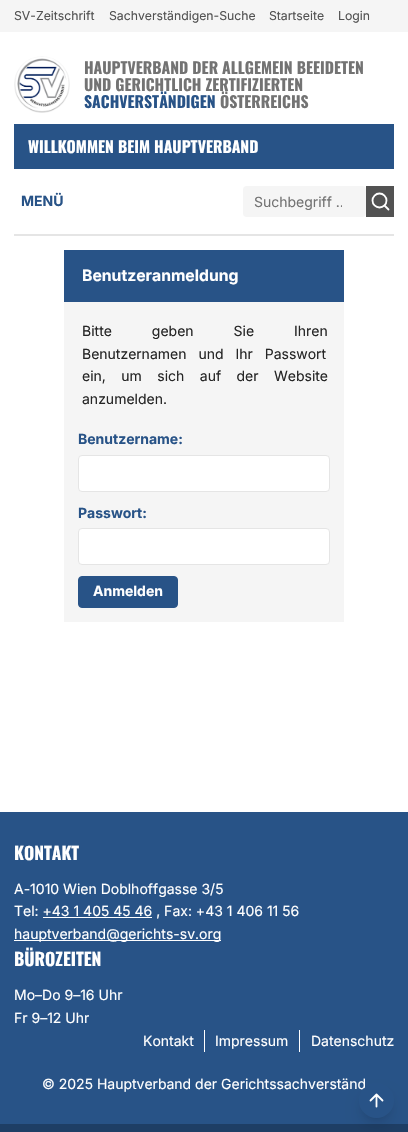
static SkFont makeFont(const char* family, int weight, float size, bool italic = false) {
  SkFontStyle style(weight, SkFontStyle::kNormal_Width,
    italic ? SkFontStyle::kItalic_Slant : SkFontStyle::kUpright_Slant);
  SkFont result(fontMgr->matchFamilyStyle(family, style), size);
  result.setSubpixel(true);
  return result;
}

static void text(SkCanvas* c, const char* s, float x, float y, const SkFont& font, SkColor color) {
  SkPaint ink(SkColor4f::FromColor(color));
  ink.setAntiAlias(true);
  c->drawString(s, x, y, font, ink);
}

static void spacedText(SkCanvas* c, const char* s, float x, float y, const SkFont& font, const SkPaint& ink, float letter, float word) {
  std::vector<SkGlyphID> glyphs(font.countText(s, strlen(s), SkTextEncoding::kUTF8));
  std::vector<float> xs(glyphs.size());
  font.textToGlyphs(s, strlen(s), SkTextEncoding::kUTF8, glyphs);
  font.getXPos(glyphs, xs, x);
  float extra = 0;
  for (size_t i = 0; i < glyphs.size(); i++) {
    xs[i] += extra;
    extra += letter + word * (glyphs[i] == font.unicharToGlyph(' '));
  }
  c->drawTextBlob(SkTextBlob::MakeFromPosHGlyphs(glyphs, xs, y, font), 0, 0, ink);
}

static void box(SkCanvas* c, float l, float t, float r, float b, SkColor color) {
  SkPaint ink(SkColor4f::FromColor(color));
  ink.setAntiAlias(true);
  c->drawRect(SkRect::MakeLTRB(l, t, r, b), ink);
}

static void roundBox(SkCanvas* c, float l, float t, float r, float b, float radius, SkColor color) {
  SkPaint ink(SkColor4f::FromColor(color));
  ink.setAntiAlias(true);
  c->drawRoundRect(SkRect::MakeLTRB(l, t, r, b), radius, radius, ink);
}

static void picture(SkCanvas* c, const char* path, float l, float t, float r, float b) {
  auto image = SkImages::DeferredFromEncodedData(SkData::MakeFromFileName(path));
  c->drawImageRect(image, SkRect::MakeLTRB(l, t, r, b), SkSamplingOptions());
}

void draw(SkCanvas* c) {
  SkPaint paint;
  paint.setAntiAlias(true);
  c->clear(0xffffffff);
  box(c, 0, 0, 408, 32, 0xfff5f5f5);
  SkFont face1 = makeFont("Inter", 400, 12.25f);
  text(c, "SV-Zeitschrift", 14, 20, face1, 0xff525252);
  text(c, "Sachverständigen-Suche", 109, 20, face1, 0xff525252);
  text(c, "Startseite", 269, 20, face1, 0xff525252);
  text(c, "Login", 338, 20, face1, 0xff525252);
  picture(c, "img_01.png", 14, 56, 70, 113);
  SkFont face2 = makeFont("Oswald", 700, 15.75f);
  text(c, "HAUPTVERBAND DER ALLGEMEIN BEEIDETEN", 84, 74, face2, 0xff737373);
  text(c, "UND GERICHTLICH ZERTIFIZIERTEN", 84, 91, face2, 0xff737373);
  text(c, "SACHVERSTÄNDIGEN", 84, 108, face2, 0xff285387);
  text(c, "ÖSTERREICHS", 220, 108, face2, 0xff737373);
  box(c, 14, 124, 394, 169, 0xff285387);
  text(c, "WILLKOMMEN BEIM HAUPTVERBAND", 28, 153, face2, 0xffffffff);
  box(c, 14, 234, 394, 236, 0xffe5e5e5);
  SkFont face3 = makeFont("Inter", 700, 14);
  text(c, "MENÜ", 21, 206, face3, 0xff285387);
  roundBox(c, 243, 186, 366, 217, 4, 0xfff5f5f5);
  c->save();
  c->clipRect(SkRect::MakeLTRB(254, 193, 342, 210));
  SkFont face4 = makeFont("Inter", 400, 14);
  text(c, "Suchbegriff …", 254, 207, face4, 0xff737373);
  c->restore();
  box(c, 366, 186, 394, 217, 0xff525252);
  paint.setStyle(SkPaint::kStroke_Style);
  paint.setStrokeWidth(1.8f);
  paint.setColor(0xffffffff);
  c->drawCircle(379.5f, 200.5f, 7, paint);
  paint.setStrokeCap(SkPaint::kRound_Cap);
  paint.setStrokeJoin(SkPaint::kRound_Join);
  c->drawPath(SkPathBuilder().moveTo(388.5f, 209.5f).lineTo(384.5f, 205.5f).detach(), paint);
  box(c, 64, 302, 344, 622, 0xfff5f5f5);
  box(c, 64, 250, 344, 302, 0xff285387);
  SkFont face5 = makeFont("Inter", 700, 15.75f);
  text(c, "Benutzeranmeldung", 82, 281, face5, 0xffffffff);
  paint.setStyle(SkPaint::kFill_Style);
  paint.setColor(0xff262626);
  spacedText(c, "Bitte geben Sie Ihren", 82, 336, face4, paint, 0, 36);
  spacedText(c, "Benutzernamen und Ihr Passwort", 82, 359, face4, paint, 0, 8);
  spacedText(c, "ein, um sich auf der Website", 82, 381, face4, paint, 0, 11.5f);
  text(c, "anzumelden.", 82, 404, face4, 0xff262626);
  text(c, "Benutzername:", 78, 444, face3, 0xff285387);
  paint.setColor(0xffffffff);
  c->drawRoundRect(SkRect::MakeLTRB(78.5f, 455.5f, 329.5f, 491.5f), 3.5f, 3.5f, paint);
  paint.setStyle(SkPaint::kStroke_Style);
  paint.setStrokeWidth(1);
  paint.setStrokeCap(SkPaint::kButt_Cap);
  paint.setStrokeJoin(SkPaint::kMiter_Join);
  paint.setColor(0xffe5e5e5);
  c->drawRoundRect(SkRect::MakeLTRB(78.5f, 455.5f, 329.5f, 491.5f), 3.5f, 3.5f, paint);
  text(c, "Passwort:", 78, 518, face3, 0xff285387);
  paint.setStyle(SkPaint::kFill_Style);
  paint.setColor(0xffffffff);
  c->drawRoundRect(SkRect::MakeLTRB(78.5f, 528.5f, 329.5f, 564.5f), 3.5f, 3.5f, paint);
  paint.setStyle(SkPaint::kStroke_Style);
  paint.setColor(0xffe5e5e5);
  c->drawRoundRect(SkRect::MakeLTRB(78.5f, 528.5f, 329.5f, 564.5f), 3.5f, 3.5f, paint);
  paint.setStyle(SkPaint::kFill_Style);
  paint.setColor(0xff285387);
  c->drawRoundRect(SkRect::MakeLTRB(78.5f, 576.5f, 177.5f, 607.5f), 3.5f, 3.5f, paint);
  paint.setStyle(SkPaint::kStroke_Style);
  c->drawRoundRect(SkRect::MakeLTRB(78.5f, 576.5f, 177.5f, 607.5f), 3.5f, 3.5f, paint);
  text(c, "Anmelden", 93, 596, face3, 0xffffffff);
  box(c, 0, 812, 408, 1124, 0xff285387);
  box(c, 0, 1124, 408, 1132, 0xff1e3e65);
  SkFont face6 = makeFont("Oswald", 700, 17.5f);
  text(c, "KONTAKT", 14, 860, face6, 0xffffffff);
  text(c, "A-1010 Wien Doblhoffgasse 3/5", 14, 894, face4, 0xffffffff);
  text(c, "Tel: +43 1 405 45 46 , Fax: +43 1 406 11 56", 14, 916, face4, 0xffffffff);
  box(c, 43, 917, 152, 918, 0xffffffff);
  box(c, 14, 940, 221, 941, 0xffffffff);
  text(c, "hauptverband@gerichts-sv.org", 14, 939, face4, 0xffffffff);
  text(c, "BÜROZEITEN", 14, 966, face6, 0xffffffff);
  text(c, "Mo–Do 9–16 Uhr", 14, 1000, face4, 0xffffffff);
  text(c, "Fr 9–12 Uhr", 14, 1023, face4, 0xffffffff);
  text(c, "Kontakt", 143, 1046, face4, 0xffffffff);
  box(c, 204, 1030, 205, 1052, 0xffffffff);
  text(c, "Impressum", 215, 1046, face4, 0xffffffff);
  box(c, 299, 1030, 300, 1052, 0xffffffff);
  text(c, "Datenschutz", 311, 1046, face4, 0xffffffff);
  text(c, "© 2025 Hauptverband der Gerichtssachverständ", 42, 1089, face4, 0xffffffff);
  paint.setStyle(SkPaint::kFill_Style);
  paint.setColor(0x1a000000);
  paint.setMaskFilter(SkMaskFilter::MakeBlur(kNormal_SkBlurStyle, 3));
  c->drawRoundRect(SkRect::MakeLTRB(363, 1091, 390, 1118), 13.5f, 13.5f, paint);
  paint.setMaskFilter(nullptr);
  paint.setMaskFilter(SkMaskFilter::MakeBlur(kNormal_SkBlurStyle, 7.5f));
  c->drawRoundRect(SkRect::MakeLTRB(362, 1096, 391, 1125), 14.5f, 14.5f, paint);
  paint.setMaskFilter(nullptr);
  paint.setColor(0xff285387);
  c->drawCircle(376.5f, 1100.5f, 17.5f, paint);
  paint.setStyle(SkPaint::kStroke_Style);
  paint.setStrokeWidth(1.8f);
  paint.setStrokeCap(SkPaint::kRound_Cap);
  paint.setStrokeJoin(SkPaint::kRound_Join);
  paint.setColor(0xffffffff);
  c->drawPath(SkPathBuilder().moveTo(376.5f, 1106.5f).lineTo(376.5f, 1094.5f).moveTo(370.5f, 1100.5f).lineTo(376.5f, 1094.5f).lineTo(382.5f, 1100.5f).detach(), paint);
}
